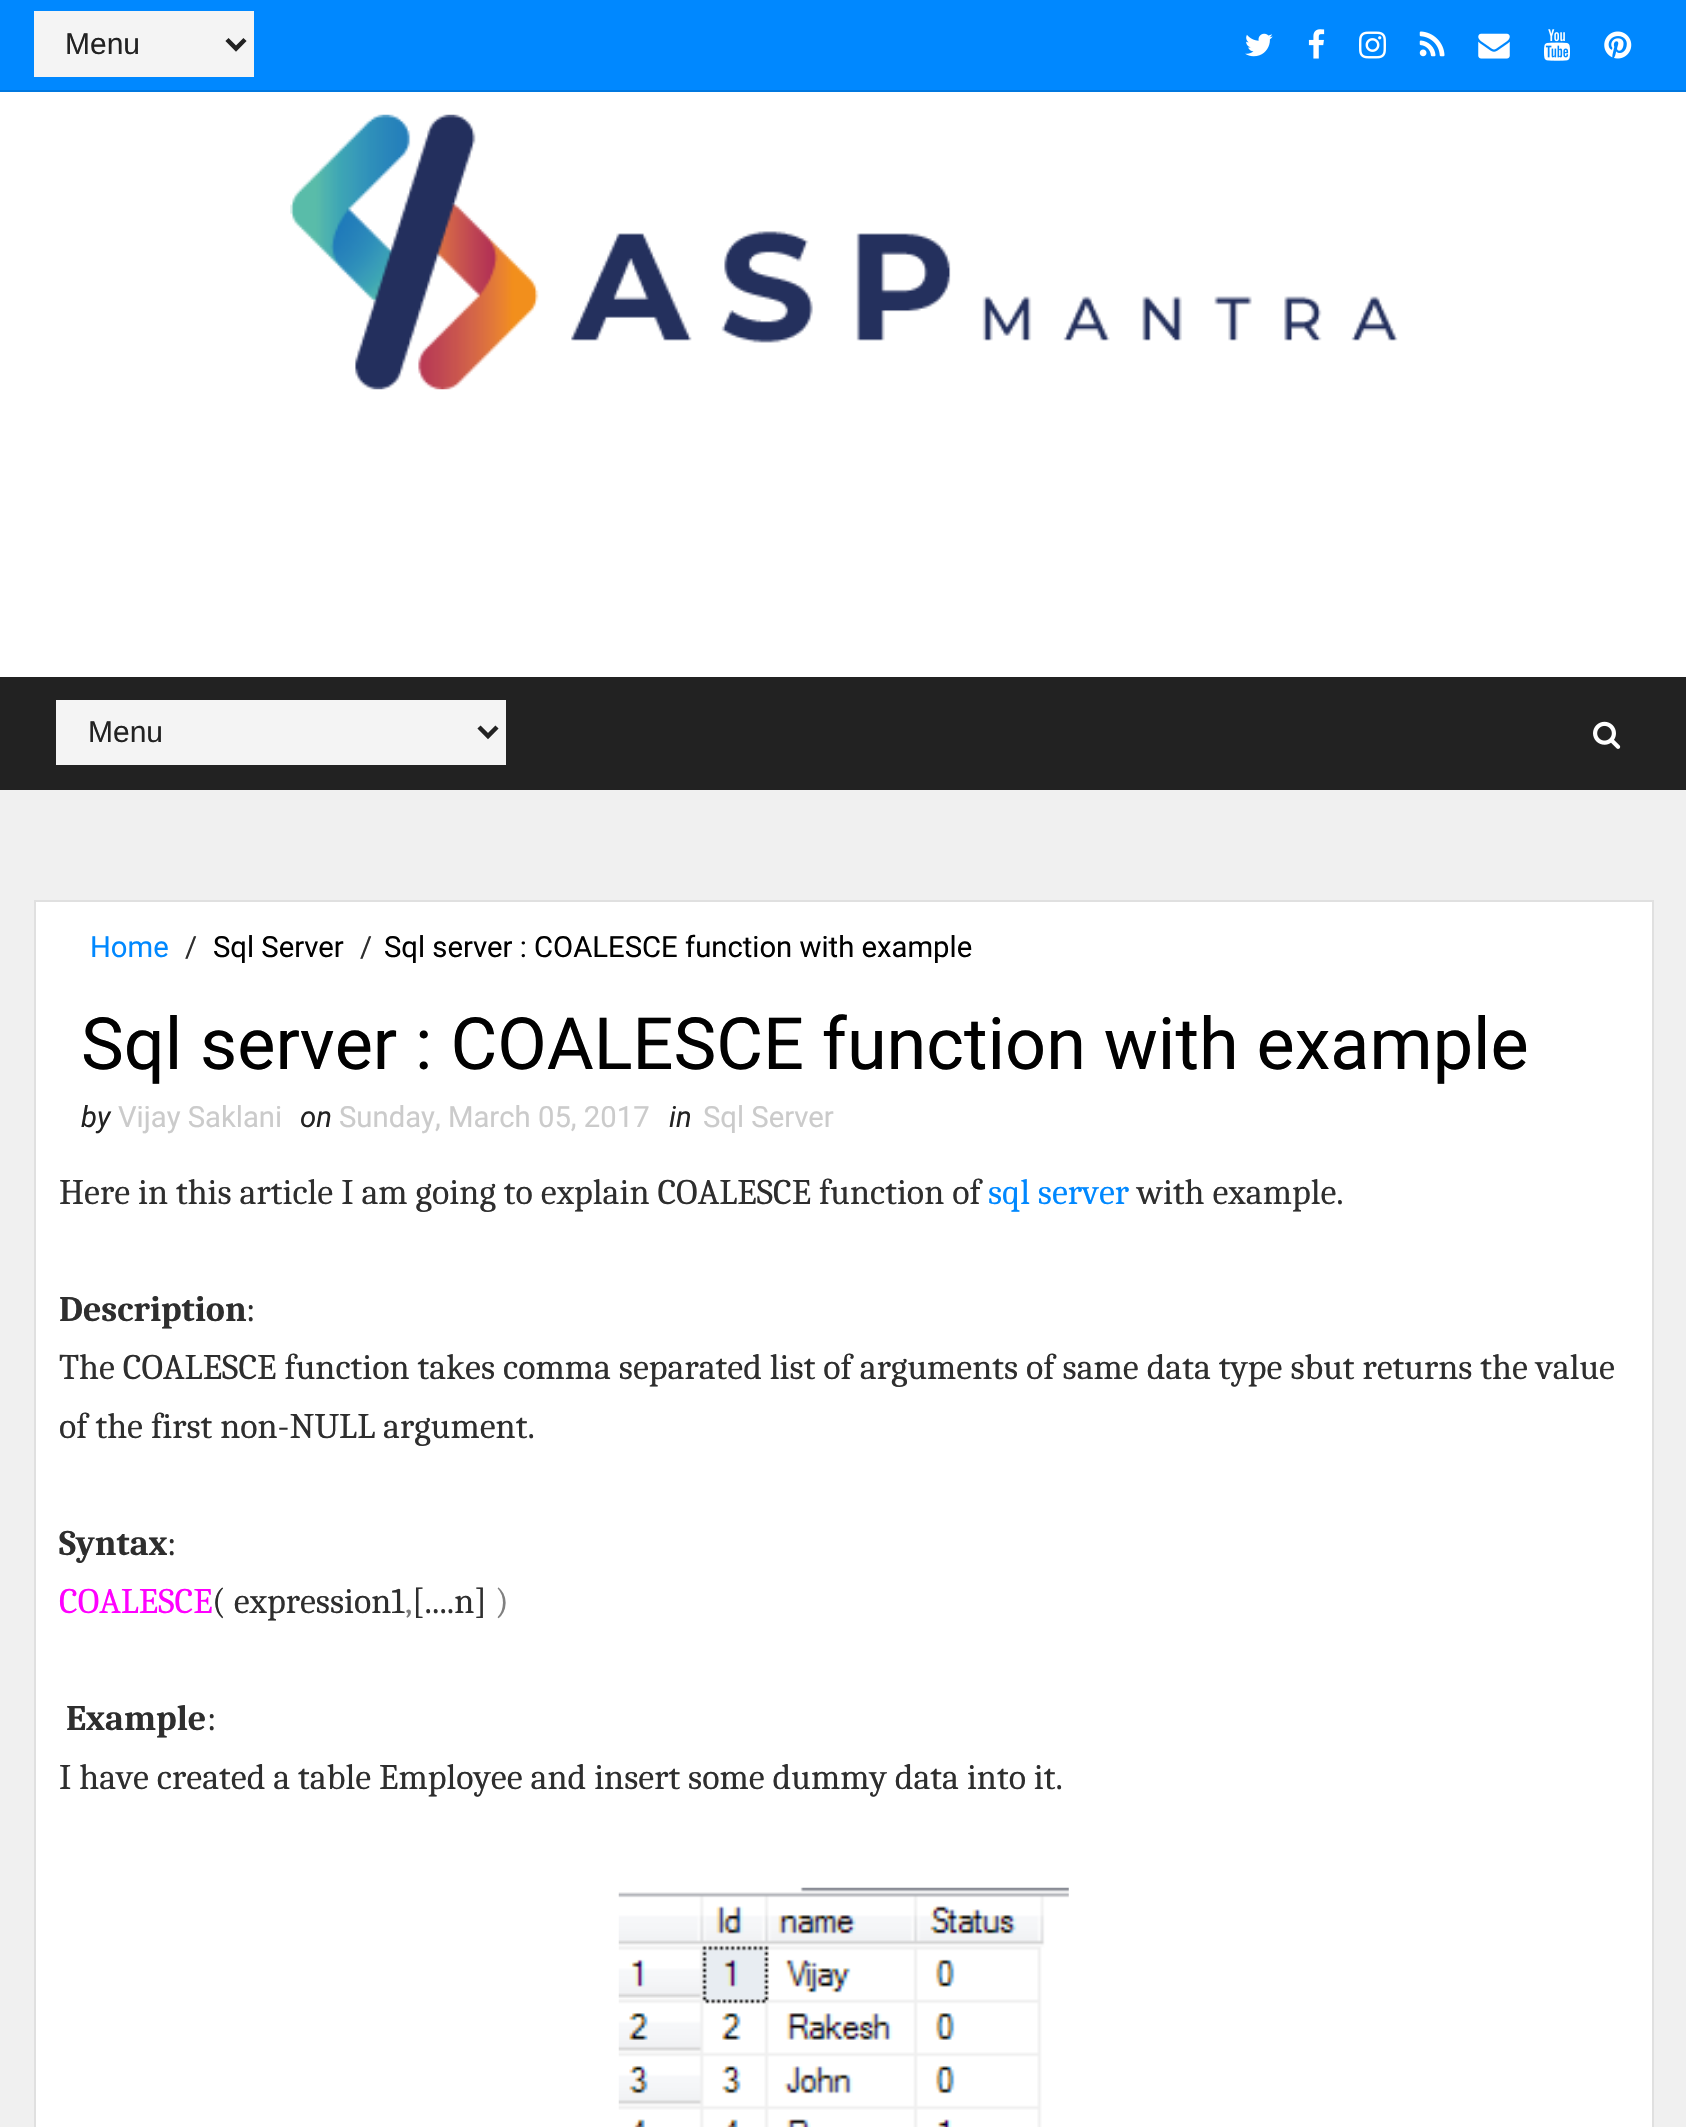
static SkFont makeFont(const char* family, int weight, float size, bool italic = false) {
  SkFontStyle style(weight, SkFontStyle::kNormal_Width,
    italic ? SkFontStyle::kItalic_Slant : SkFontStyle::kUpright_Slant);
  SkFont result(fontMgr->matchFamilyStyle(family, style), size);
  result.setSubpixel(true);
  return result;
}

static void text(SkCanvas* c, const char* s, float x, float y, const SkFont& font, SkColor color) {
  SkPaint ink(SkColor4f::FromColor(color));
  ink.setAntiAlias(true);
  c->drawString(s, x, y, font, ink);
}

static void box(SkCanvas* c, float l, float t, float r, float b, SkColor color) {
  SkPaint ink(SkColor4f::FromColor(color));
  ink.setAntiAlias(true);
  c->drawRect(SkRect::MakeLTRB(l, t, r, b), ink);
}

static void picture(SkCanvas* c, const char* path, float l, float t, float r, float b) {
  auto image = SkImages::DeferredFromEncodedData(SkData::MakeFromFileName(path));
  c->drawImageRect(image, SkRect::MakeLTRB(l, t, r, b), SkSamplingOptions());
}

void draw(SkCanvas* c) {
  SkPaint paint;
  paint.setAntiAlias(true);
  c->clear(0xfff0f0f0);
  box(c, 0, 0, 1686, 90, 0xff0088ff);
  box(c, 0, 90, 1686, 92, 0xff0078e0);
  box(c, 34, 11, 254, 77, 0xfff4f4f4);
  paint.setStyle(SkPaint::kStroke_Style);
  paint.setStrokeWidth(4.5f);
  paint.setColor(0xff222222);
  c->drawPath(SkPathBuilder().moveTo(227, 39.5f).lineTo(236, 48.5f).lineTo(245, 39.5f).detach(), paint);
  SkFont face1 = makeFont("Liberation Sans", 400, 30);
  text(c, "Menu", 65, 54, face1, 0xff222222);
  picture(c, "img_01.png", 1245, 33, 1273, 57);
  picture(c, "img_02.png", 1308, 29, 1325, 59);
  picture(c, "img_03.png", 1359, 31, 1386, 59);
  picture(c, "img_04.png", 1419, 31, 1445, 57);
  picture(c, "img_05.png", 1478, 33, 1510, 59);
  picture(c, "img_06.png", 1544, 29, 1570, 61);
  picture(c, "img_07.png", 1604, 31, 1632, 59);
  box(c, 0, 92, 1686, 677, 0xffffffff);
  picture(c, "img_08.png", 290, 114, 1398, 390);
  box(c, 0, 677, 1686, 790, 0xff222222);
  box(c, 56, 700, 506, 765, 0xfff4f4f4);
  c->drawPath(SkPathBuilder().moveTo(479, 727).lineTo(488, 736).lineTo(497, 727).detach(), paint);
  text(c, "Menu", 88, 742, face1, 0xff222222);
  picture(c, "img_09.png", 1593, 721, 1621, 749);
  paint.setStyle(SkPaint::kFill_Style);
  paint.setColor(0xffffffff);
  c->drawRect(SkRect::MakeLTRB(35, 901, 1653, 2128), paint);
  paint.setStyle(SkPaint::kStroke_Style);
  paint.setStrokeWidth(2);
  paint.setColor(0xffe0e0e0);
  c->drawRect(SkRect::MakeLTRB(35, 901, 1653, 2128), paint);
  SkFont face2 = makeFont("Roboto", 400, 29.25f);
  text(c, "Home", 90, 957, face2, 0xff0088ff);
  text(c, "/", 185, 957, face2, 0xff2e2e2e);
  text(c, "Sql Server", 213, 957, face2, 0xff010101);
  text(c, "/", 360, 957, face2, 0xff2e2e2e);
  text(c, "Sql server : COALESCE function with example", 384, 957, face2, 0xff010101);
  SkFont face3 = makeFont("Roboto", 400, 72);
  text(c, "Sql server : COALESCE function with example", 81, 1069, face3, 0xff010101);
  SkFont face4 = makeFont("Roboto", 400, 29.25f, true);
  text(c, "by", 81, 1127, face4, 0xff222222);
  text(c, "Vijay Saklani", 118, 1127, face2, 0xffcbcbcb);
  text(c, "on", 300, 1127, face4, 0xff222222);
  text(c, "Sunday, March 05, 2017", 339, 1127, face2, 0xffcbcbcb);
  text(c, "in", 669, 1127, face4, 0xff222222);
  text(c, "Sql Server", 703, 1127, face2, 0xffcbcbcb);
  SkFont face5 = makeFont("Caladea", 400, 36);
  text(c, "Here in this article I am going to explain COALESCE function of", 59, 1204, face5, 0xff2e2e2e);
  text(c, "sql server", 988, 1204, face5, 0xff0088ff);
  text(c, "with example.", 1137, 1204, face5, 0xff2e2e2e);
  SkFont face6 = makeFont("Caladea", 700, 36);
  text(c, "Description", 59, 1321, face6, 0xff2e2e2e);
  text(c, ":", 246, 1321, face5, 0xff2e2e2e);
  text(c, "The COALESCE function takes comma separated list of arguments of same data type sbut returns the value", 59, 1379, face5, 0xff2e2e2e);
  text(c, "of the first non-NULL argument.", 59, 1438, face5, 0xff2e2e2e);
  text(c, "Syntax", 59, 1555, face6, 0xff2e2e2e);
  text(c, ":", 167, 1555, face5, 0xff2e2e2e);
  text(c, "COALESCE", 59, 1613, face5, 0xffff00ff);
  text(c, "( expression1", 212, 1613, face5, 0xff2e2e2e);
  text(c, ",", 405, 1613, face5, 0xff808080);
  text(c, "[....n]", 412, 1613, face5, 0xff2e2e2e);
  text(c, ")", 495, 1613, face5, 0xff808080);
  text(c, "Example", 66, 1730, face6, 0xff2e2e2e);
  text(c, ":", 207, 1730, face5, 0xff2e2e2e);
  text(c, "I have created a table Employee and insert some dummy data into it.", 59, 1789, face5, 0xff2e2e2e);
  picture(c, "img_10.png", 618, 1887, 1069, 2127);
}
